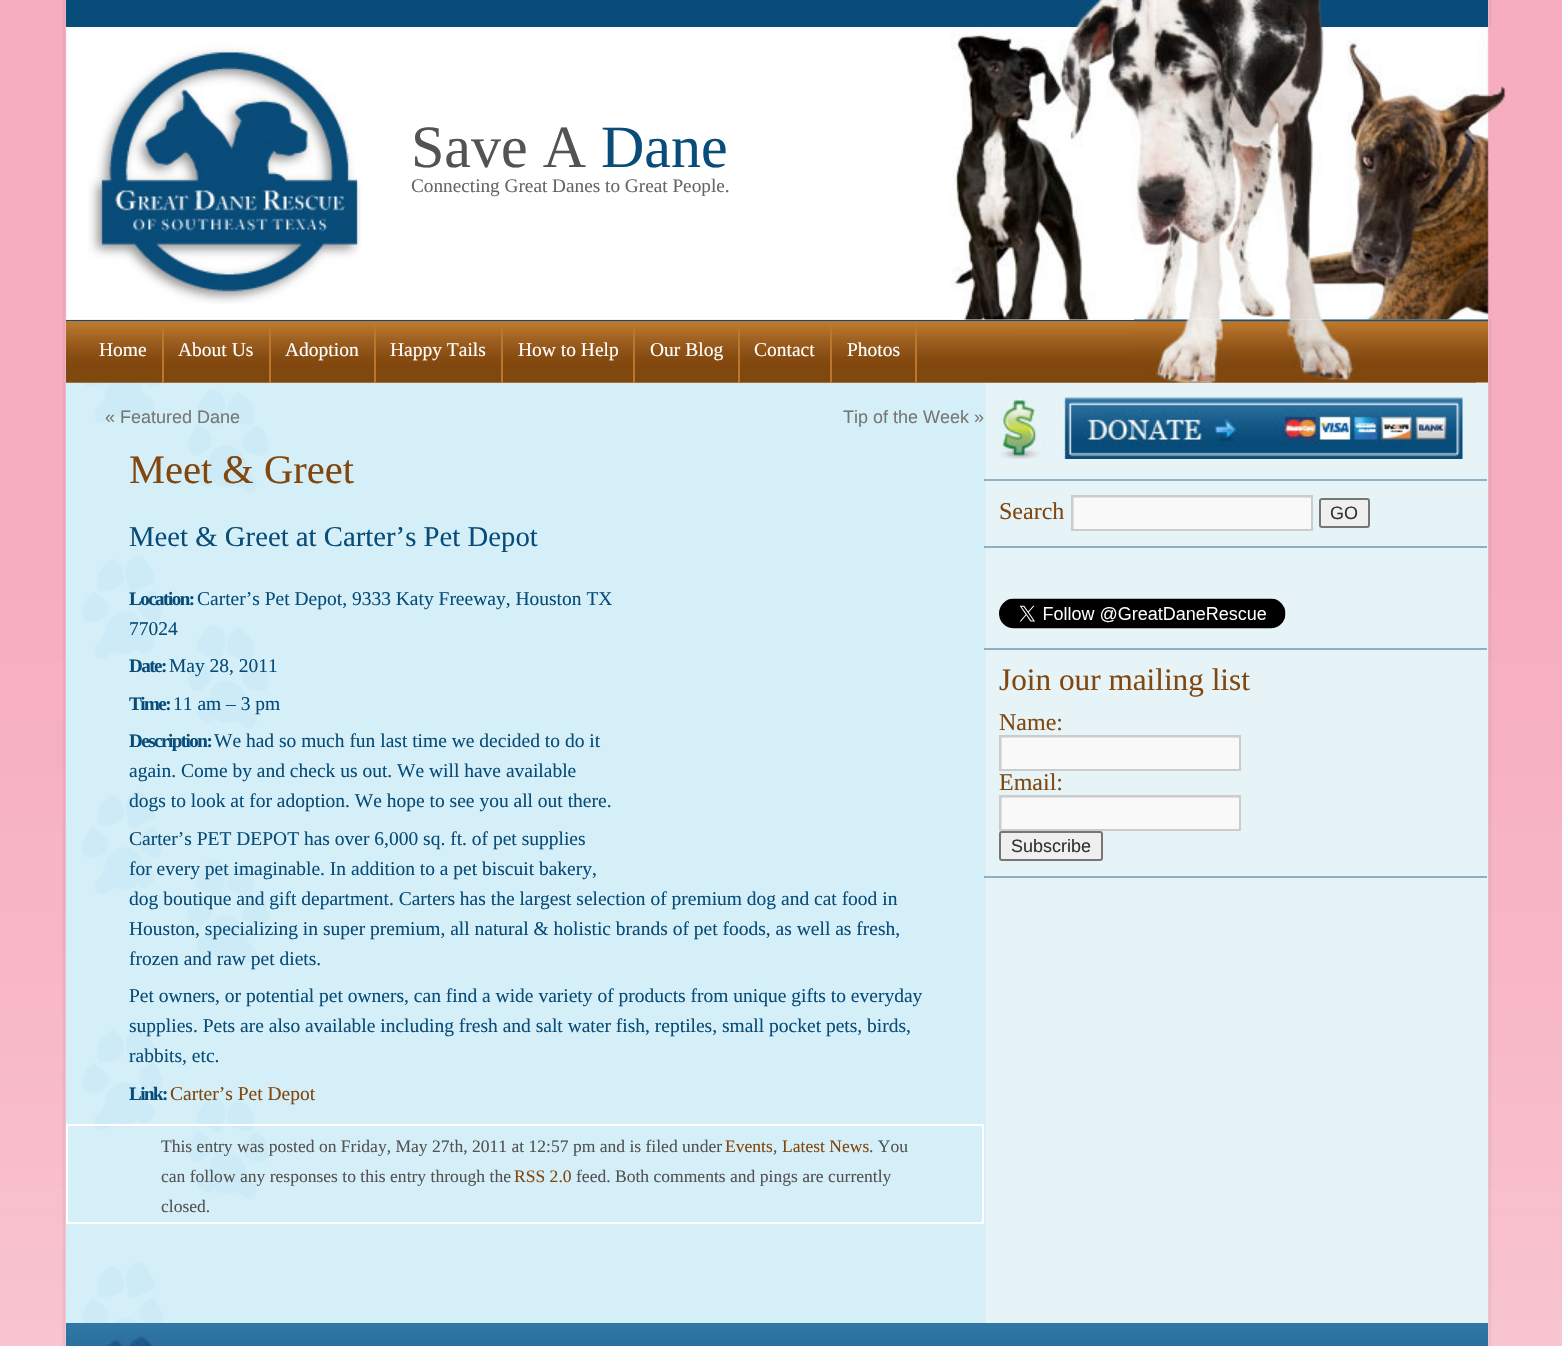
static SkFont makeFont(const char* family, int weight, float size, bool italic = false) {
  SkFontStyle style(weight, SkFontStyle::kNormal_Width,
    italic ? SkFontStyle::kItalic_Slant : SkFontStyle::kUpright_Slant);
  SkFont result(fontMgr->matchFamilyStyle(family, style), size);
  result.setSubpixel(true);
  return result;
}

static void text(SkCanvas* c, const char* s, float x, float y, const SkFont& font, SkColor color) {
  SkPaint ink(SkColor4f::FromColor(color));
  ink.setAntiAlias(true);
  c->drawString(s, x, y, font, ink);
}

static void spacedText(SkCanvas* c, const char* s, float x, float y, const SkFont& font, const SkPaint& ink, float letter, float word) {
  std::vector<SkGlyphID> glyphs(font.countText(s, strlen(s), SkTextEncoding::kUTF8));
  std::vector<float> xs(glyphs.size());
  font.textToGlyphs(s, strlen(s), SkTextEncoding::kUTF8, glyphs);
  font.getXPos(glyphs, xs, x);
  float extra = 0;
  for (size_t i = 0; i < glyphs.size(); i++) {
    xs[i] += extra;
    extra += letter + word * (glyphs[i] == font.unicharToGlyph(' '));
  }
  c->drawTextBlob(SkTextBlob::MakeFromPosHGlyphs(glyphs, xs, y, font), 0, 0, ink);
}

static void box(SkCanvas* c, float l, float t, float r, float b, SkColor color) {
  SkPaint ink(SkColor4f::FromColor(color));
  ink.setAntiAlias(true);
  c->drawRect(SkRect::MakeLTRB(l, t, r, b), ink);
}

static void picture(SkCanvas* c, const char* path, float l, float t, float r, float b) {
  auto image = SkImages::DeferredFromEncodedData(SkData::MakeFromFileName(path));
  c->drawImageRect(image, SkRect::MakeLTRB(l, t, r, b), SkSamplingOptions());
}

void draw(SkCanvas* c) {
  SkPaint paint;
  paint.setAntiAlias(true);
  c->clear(0xffffffff);
  picture(c, "img_01.png", 0, 0, 1562, 1346);
  picture(c, "img_02.png", 62, 0, 1492, 1346);
  box(c, 66, 0, 1488, 27, 0xff084c79);
  picture(c, "img_03.png", 1071, 0, 1323, 27);
  picture(c, "img_04.png", 88, 44, 361, 304);
  SkFont face1 = makeFont("Liberation Serif", 400, 60);
  text(c, "Save A", 411, 167, face1, 0xff535353);
  text(c, "Dane", 601, 167, face1, 0xff084c79);
  SkFont face2 = makeFont("Liberation Serif", 400, 19.25f);
  text(c, "Connecting Great Danes to Great People.", 411, 192, face2, 0xff666666);
  picture(c, "img_09.png", 66, 319, 1488, 1323);
  picture(c, "img_05.png", 951, 27, 1506, 320);
  picture(c, "img_06.png", 66, 382, 1134, 383);
  box(c, 66, 320, 1134, 321, 0xff084c79);
  picture(c, "img_07.png", 66, 321, 1476, 383);
  box(c, 162, 321, 164, 383, 0xffbc762e);
  SkFont face3 = makeFont("Liberation Serif", 400, 19.5f);
  text(c, "Home", 99, 356, face3, 0xffffffff);
  box(c, 269, 321, 271, 383, 0xffbc762e);
  text(c, "About Us", 178, 356, face3, 0xffffffff);
  box(c, 374, 321, 376, 383, 0xffbc762e);
  text(c, "Adoption", 285, 356, face3, 0xffffffff);
  box(c, 501, 321, 503, 383, 0xffbc762e);
  text(c, "Happy Tails", 390, 356, face3, 0xffffffff);
  box(c, 633, 321, 635, 383, 0xffbc762e);
  text(c, "How to Help", 518, 356, face3, 0xffffffff);
  box(c, 738, 321, 740, 383, 0xffbc762e);
  text(c, "Our Blog", 650, 356, face3, 0xffffffff);
  box(c, 830, 321, 832, 383, 0xffbc762e);
  text(c, "Contact", 754, 356, face3, 0xffffffff);
  box(c, 915, 321, 917, 383, 0xffbc762e);
  text(c, "Photos", 847, 356, face3, 0xffffffff);
  picture(c, "img_08.png", 1134, 319, 1488, 383);
  SkFont face4 = makeFont("Liberation Sans", 400, 18);
  text(c, "« Featured Dane", 105, 423, face4, 0xff777777);
  text(c, "Tip of the Week »", 843, 423, face4, 0xff777777);
  SkFont face5 = makeFont("Liberation Serif", 400, 40.5f);
  text(c, "Meet & Greet", 129, 483, face5, 0xff81470f);
  SkFont face6 = makeFont("Liberation Serif", 400, 28.75f);
  text(c, "Meet & Greet at Carter’s Pet Depot", 129, 546, face6, 0xff084c79);
  SkFont face7 = makeFont("Liberation Serif", 700, 19);
  paint.setColor(0xff084c79);
  spacedText(c, "Location:", 129, 605, face7, paint, -1.5f, 0);
  text(c, "Carter’s Pet Depot, 9333 Katy Freeway, Houston TX", 197, 605, face3, 0xff084c79);
  text(c, "77024", 129, 635, face3, 0xff084c79);
  spacedText(c, "Date:", 129, 672, face7, paint, -1.5f, 0);
  text(c, "May 28, 2011", 169, 672, face3, 0xff084c79);
  spacedText(c, "Time:", 129, 710, face7, paint, -1.5f, 0);
  text(c, "11 am – 3 pm", 173, 710, face3, 0xff084c79);
  spacedText(c, "Description:", 129, 747, face7, paint, -1.5f, 0);
  text(c, "We had so much fun last time we decided to do it", 214, 747, face3, 0xff084c79);
  text(c, "again. Come by and check us out. We will have available", 129, 777, face3, 0xff084c79);
  text(c, "dogs to look at for adoption. We hope to see you all out there.", 129, 807, face3, 0xff084c79);
  text(c, "Carter’s PET DEPOT has over 6,000 sq. ft. of pet supplies", 129, 845, face3, 0xff084c79);
  text(c, "for every pet imaginable. In addition to a pet biscuit bakery,", 129, 875, face3, 0xff084c79);
  text(c, "dog boutique and gift department. Carters has the largest selection of premium dog and cat food in", 129, 905, face3, 0xff084c79);
  text(c, "Houston, specializing in super premium, all natural & holistic brands of pet foods, as well as fresh,", 129, 935, face3, 0xff084c79);
  text(c, "frozen and raw pet diets.", 129, 965, face3, 0xff084c79);
  text(c, "Pet owners, or potential pet owners, can find a wide variety of products from unique gifts to everyday", 129, 1002, face3, 0xff084c79);
  text(c, "supplies. Pets are also available including fresh and salt water fish, reptiles, small pocket pets, birds,", 129, 1032, face3, 0xff084c79);
  text(c, "rabbits, etc.", 129, 1062, face3, 0xff084c79);
  spacedText(c, "Link:", 129, 1100, face7, paint, -1.5f, 0);
  text(c, "Carter’s Pet Depot", 170, 1100, face3, 0xff81470f);
  paint.setStyle(SkPaint::kStroke_Style);
  paint.setStrokeWidth(2);
  paint.setColor(0xffffffff);
  c->drawRect(SkRect::MakeLTRB(67, 1125, 983, 1223), paint);
  SkFont face8 = makeFont("Liberation Serif", 400, 17.55f);
  text(c, "This entry was posted on Friday, May 27th, 2011 at 12:57 pm and is filed under", 161, 1152, face8, 0xff535353);
  text(c, "Events", 725, 1152, face8, 0xff81470f);
  text(c, ",", 773, 1152, face8, 0xff535353);
  text(c, "Latest News", 782, 1152, face8, 0xff81470f);
  text(c, ". You", 869, 1152, face8, 0xff535353);
  text(c, "can follow any responses to this entry through the", 161, 1182, face8, 0xff535353);
  text(c, "RSS 2.0", 514, 1182, face8, 0xff81470f);
  text(c, "feed. Both comments and pings are currently", 576, 1182, face8, 0xff535353);
  text(c, "closed.", 161, 1212, face8, 0xff535353);
  box(c, 984, 479, 1487, 481, 0xff8db0c5);
  picture(c, "img_10.png", 999, 397, 1463, 459);
  box(c, 984, 546, 1487, 548, 0xff8db0c5);
  SkFont face9 = makeFont("Liberation Serif", 400, 24);
  text(c, "Search", 999, 519, face9, 0xff81470f);
  box(c, 1074, 498, 1311, 529, 0xfff9f9f9);
  c->save();
  c->clipRect(SkRect::MakeLTRB(1073, 497, 1311, 530));
  paint.setStyle(SkPaint::kFill_Style);
  paint.setColor(0xffe0e0e0);
  c->drawPath(SkPathBuilder(SkPathFillType::kEvenOdd).moveTo(924, 348).lineTo(1460, 348).lineTo(1460, 678).lineTo(924, 678).close().moveTo(1074, 498).lineTo(1312, 498).lineTo(1312, 531).lineTo(1074, 531).close().detach(), paint);
  c->restore();
  paint.setStyle(SkPaint::kStroke_Style);
  paint.setColor(0xffcccccc);
  c->drawRect(SkRect::MakeLTRB(1072, 496, 1312, 530), paint);
  paint.setStyle(SkPaint::kFill_Style);
  paint.setColor(0xffefefef);
  c->drawRoundRect(SkRect::MakeLTRB(1320, 499, 1369, 527), 2, 2, paint);
  paint.setStyle(SkPaint::kStroke_Style);
  paint.setColor(0xff767676);
  c->drawRoundRect(SkRect::MakeLTRB(1320, 499, 1369, 527), 2, 2, paint);
  text(c, "GO", 1330, 519, face4, 0xff333333);
  box(c, 984, 648, 1487, 650, 0xff8db0c5);
  picture(c, "img_11.png", 999, 598, 1286, 629);
  box(c, 984, 876, 1487, 878, 0xff8db0c5);
  SkFont face10 = makeFont("Liberation Serif", 400, 31.25f);
  text(c, "Join our mailing list", 999, 690, face10, 0xff81470f);
  text(c, "Name:", 999, 730, face9, 0xff81470f);
  box(c, 1002, 738, 1239, 769, 0xfff9f9f9);
  c->save();
  c->clipRect(SkRect::MakeLTRB(1001, 737, 1239, 770));
  paint.setStyle(SkPaint::kFill_Style);
  paint.setColor(0xffe0e0e0);
  c->drawPath(SkPathBuilder(SkPathFillType::kEvenOdd).moveTo(852, 588).lineTo(1388, 588).lineTo(1388, 918).lineTo(852, 918).close().moveTo(1002, 738).lineTo(1240, 738).lineTo(1240, 771).lineTo(1002, 771).close().detach(), paint);
  c->restore();
  paint.setStyle(SkPaint::kStroke_Style);
  paint.setColor(0xffcccccc);
  c->drawRect(SkRect::MakeLTRB(1000, 736, 1240, 770), paint);
  text(c, "Email:", 999, 790, face9, 0xff81470f);
  box(c, 1002, 798, 1239, 829, 0xfff9f9f9);
  c->save();
  c->clipRect(SkRect::MakeLTRB(1001, 797, 1239, 830));
  paint.setStyle(SkPaint::kFill_Style);
  paint.setColor(0xffe0e0e0);
  c->drawPath(SkPathBuilder(SkPathFillType::kEvenOdd).moveTo(852, 648).lineTo(1388, 648).lineTo(1388, 978).lineTo(852, 978).close().moveTo(1002, 798).lineTo(1240, 798).lineTo(1240, 831).lineTo(1002, 831).close().detach(), paint);
  c->restore();
  paint.setStyle(SkPaint::kStroke_Style);
  paint.setColor(0xffcccccc);
  c->drawRect(SkRect::MakeLTRB(1000, 796, 1240, 830), paint);
  paint.setStyle(SkPaint::kFill_Style);
  paint.setColor(0xffefefef);
  c->drawRoundRect(SkRect::MakeLTRB(1000, 832, 1102, 860), 2, 2, paint);
  paint.setStyle(SkPaint::kStroke_Style);
  paint.setColor(0xff767676);
  c->drawRoundRect(SkRect::MakeLTRB(1000, 832, 1102, 860), 2, 2, paint);
  text(c, "Subscribe", 1011, 852, face4, 0xff333333);
  picture(c, "img_12.png", 66, 1323, 1488, 1346);
  picture(c, "img_13.png", 107, 1335, 153, 1346);
}
